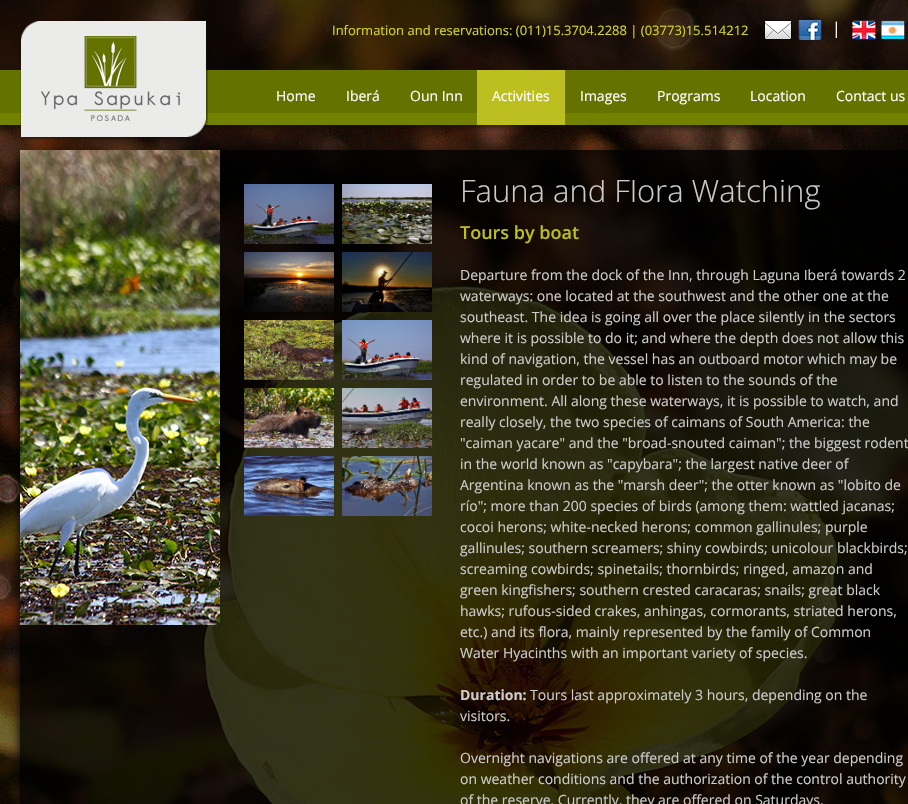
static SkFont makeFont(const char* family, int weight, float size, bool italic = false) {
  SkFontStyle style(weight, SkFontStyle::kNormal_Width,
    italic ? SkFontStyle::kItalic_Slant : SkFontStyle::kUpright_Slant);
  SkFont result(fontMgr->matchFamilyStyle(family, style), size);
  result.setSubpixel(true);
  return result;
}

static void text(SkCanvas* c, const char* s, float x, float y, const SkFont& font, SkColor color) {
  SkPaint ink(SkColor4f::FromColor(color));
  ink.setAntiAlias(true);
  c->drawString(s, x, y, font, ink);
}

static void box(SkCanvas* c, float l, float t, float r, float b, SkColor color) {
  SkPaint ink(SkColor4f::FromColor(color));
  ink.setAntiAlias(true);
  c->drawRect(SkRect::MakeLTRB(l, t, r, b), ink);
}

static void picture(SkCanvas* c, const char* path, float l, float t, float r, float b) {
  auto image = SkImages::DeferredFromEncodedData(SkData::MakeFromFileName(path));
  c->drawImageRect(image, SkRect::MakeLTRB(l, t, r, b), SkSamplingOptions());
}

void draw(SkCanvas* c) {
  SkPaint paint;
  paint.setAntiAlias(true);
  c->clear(0xffffffff);
  picture(c, "img_01.png", 0, 0, 908, 804);
  picture(c, "img_02.png", 0, 0, 908, 132);
  picture(c, "img_03.png", 20, 20, 208, 140);
  SkFont face1 = makeFont("Open Sans", 400, 13);
  text(c, "Information and reservations: (011)15.3704.2288 | (03773)15.514212", 332, 35, face1, 0xffd2d42d);
  picture(c, "img_04.png", 764, 20, 792, 40);
  picture(c, "img_05.png", 798, 20, 822, 40);
  SkFont face2 = makeFont("Open Sans", 400, 16);
  text(c, "|", 832, 34, face2, 0xffffffff);
  picture(c, "img_06.png", 852, 20, 876, 40);
  picture(c, "img_07.png", 881, 20, 905, 40);
  SkFont face3 = makeFont("Open Sans", 400, 14);
  text(c, "Home", 276, 101, face3, 0xffffffff);
  text(c, "Iberá", 346, 101, face3, 0xffffffff);
  text(c, "Oun Inn", 410, 101, face3, 0xffffffff);
  box(c, 477, 70, 565, 125, 0xffbdbf21);
  text(c, "Activities", 492, 101, face3, 0xffffffff);
  text(c, "Images", 580, 101, face3, 0xffffffff);
  text(c, "Programs", 657, 101, face3, 0xffffffff);
  text(c, "Location", 750, 101, face3, 0xffffffff);
  text(c, "Contact us", 836, 101, face3, 0xffffffff);
  c->save();
  c->clipPath(SkPathBuilder(SkPathFillType::kEvenOdd).moveTo(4, 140).lineTo(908, 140).lineTo(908, 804).lineTo(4, 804).close().moveTo(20, 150).lineTo(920, 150).lineTo(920, 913).lineTo(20, 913).close().detach(), true);
  paint.setColor(0xff000000);
  paint.setMaskFilter(SkMaskFilter::MakeBlur(kNormal_SkBlurStyle, 5));
  c->drawRect(SkRect::MakeLTRB(20, 156, 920, 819), paint);
  paint.setMaskFilter(nullptr);
  c->restore();
  box(c, 20, 150, 908, 804, 0xcc000000);
  picture(c, "img_08.png", 20, 150, 220, 625);
  picture(c, "img_09.png", 244, 184, 334, 244);
  picture(c, "img_10.png", 342, 184, 432, 244);
  picture(c, "img_11.png", 244, 252, 334, 312);
  picture(c, "img_12.png", 342, 252, 432, 312);
  picture(c, "img_13.png", 244, 320, 334, 380);
  picture(c, "img_14.png", 342, 320, 432, 380);
  picture(c, "img_15.png", 244, 388, 334, 448);
  picture(c, "img_16.png", 342, 388, 432, 448);
  picture(c, "img_17.png", 244, 456, 334, 516);
  picture(c, "img_18.png", 342, 456, 432, 516);
  c->save();
  c->clipRect(SkRect::MakeLTRB(460, 180, 908, 804));
  SkFont face4 = makeFont("Open Sans", 300, 31);
  text(c, "Fauna and Flora Watching", 460, 202, face4, 0xffcccccc);
  c->restore();
  SkFont face5 = makeFont("Open Sans", 600, 18);
  text(c, "Tours by boat", 460, 239, face5, 0xffbdbf21);
  text(c, "Departure from the dock of the Inn, through Laguna Iberá towards 2", 460, 280, face3, 0xffcccccc);
  text(c, "waterways: one located at the southwest and the other one at the", 460, 301, face3, 0xffcccccc);
  text(c, "southeast. The idea is going all over the place silently in the sectors", 460, 322, face3, 0xffcccccc);
  text(c, "where it is possible to do it; and where the depth does not allow this", 460, 343, face3, 0xffcccccc);
  text(c, "kind of navigation, the vessel has an outboard motor which may be", 460, 364, face3, 0xffcccccc);
  text(c, "regulated in order to be able to listen to the sounds of the", 460, 385, face3, 0xffcccccc);
  text(c, "environment. All along these waterways, it is possible to watch, and", 460, 406, face3, 0xffcccccc);
  text(c, "really closely, the two species of caimans of South America: the", 460, 427, face3, 0xffcccccc);
  text(c, "\"caiman yacare\" and the \"broad-snouted caiman\"; the biggest rodent", 460, 448, face3, 0xffcccccc);
  text(c, "in the world known as \"capybara\"; the largest native deer of", 460, 469, face3, 0xffcccccc);
  text(c, "Argentina known as the \"marsh deer\"; the otter known as \"lobito de", 460, 490, face3, 0xffcccccc);
  text(c, "río\"; more than 200 species of birds (among them: wattled jacanas;", 460, 511, face3, 0xffcccccc);
  text(c, "cocoi herons; white-necked herons; common gallinules; purple", 460, 532, face3, 0xffcccccc);
  text(c, "gallinules; southern screamers; shiny cowbirds; unicolour blackbirds;", 460, 553, face3, 0xffcccccc);
  text(c, "screaming cowbirds; spinetails; thornbirds; ringed, amazon and", 460, 574, face3, 0xffcccccc);
  text(c, "green kingfishers; southern crested caracaras; snails; great black", 460, 595, face3, 0xffcccccc);
  text(c, "hawks; rufous-sided crakes, anhingas, cormorants, striated herons,", 460, 616, face3, 0xffcccccc);
  text(c, "etc.) and its flora, mainly represented by the family of Common", 460, 637, face3, 0xffcccccc);
  text(c, "Water Hyacinths with an important variety of species.", 460, 658, face3, 0xffcccccc);
  SkFont face6 = makeFont("Open Sans", 700, 14);
  text(c, "Duration:", 460, 700, face6, 0xffcccccc);
  text(c, "Tours last approximately 3 hours, depending on the", 530, 700, face3, 0xffcccccc);
  text(c, "visitors.", 460, 721, face3, 0xffcccccc);
  text(c, "Overnight navigations are offered at any time of the year depending", 460, 763, face3, 0xffcccccc);
  text(c, "on weather conditions and the authorization of the control authority", 460, 784, face3, 0xffcccccc);
  text(c, "of the reserve. Currently, they are offered on Saturdays.", 460, 805, face3, 0xffcccccc);
}
